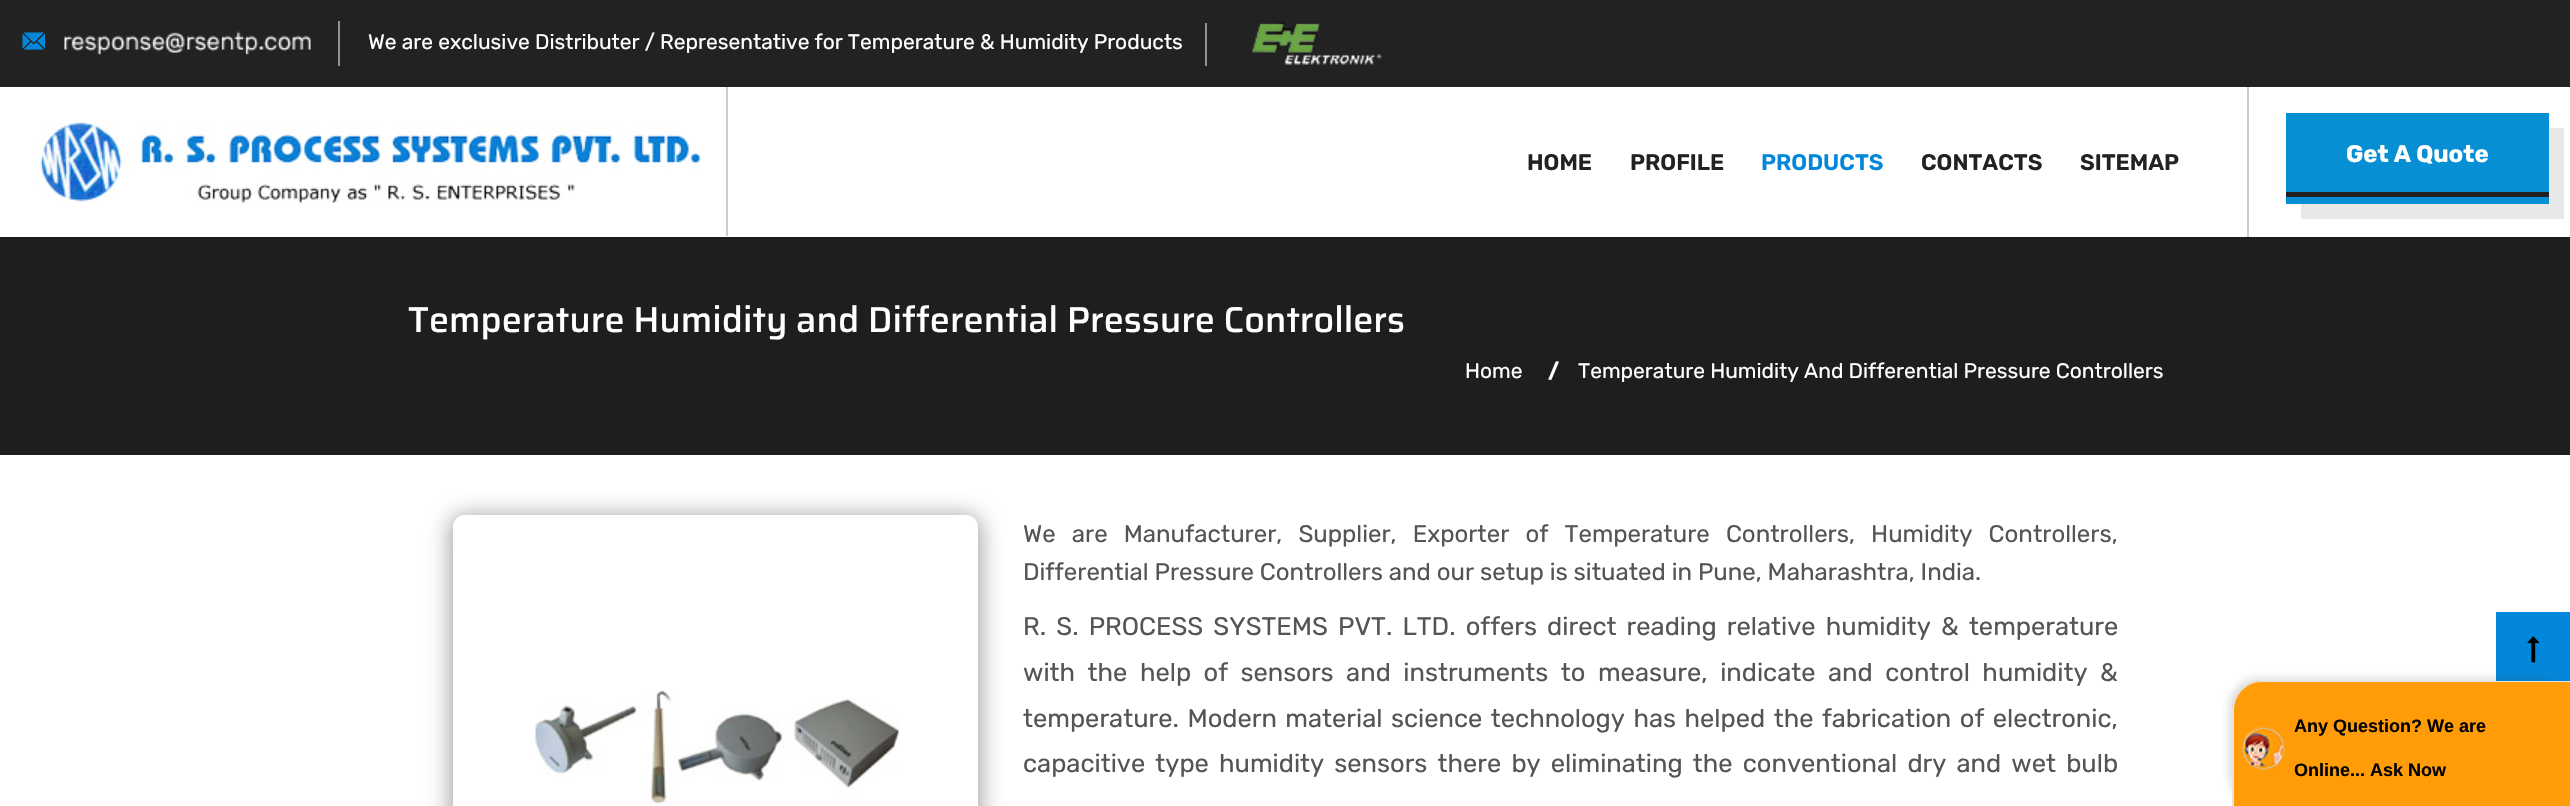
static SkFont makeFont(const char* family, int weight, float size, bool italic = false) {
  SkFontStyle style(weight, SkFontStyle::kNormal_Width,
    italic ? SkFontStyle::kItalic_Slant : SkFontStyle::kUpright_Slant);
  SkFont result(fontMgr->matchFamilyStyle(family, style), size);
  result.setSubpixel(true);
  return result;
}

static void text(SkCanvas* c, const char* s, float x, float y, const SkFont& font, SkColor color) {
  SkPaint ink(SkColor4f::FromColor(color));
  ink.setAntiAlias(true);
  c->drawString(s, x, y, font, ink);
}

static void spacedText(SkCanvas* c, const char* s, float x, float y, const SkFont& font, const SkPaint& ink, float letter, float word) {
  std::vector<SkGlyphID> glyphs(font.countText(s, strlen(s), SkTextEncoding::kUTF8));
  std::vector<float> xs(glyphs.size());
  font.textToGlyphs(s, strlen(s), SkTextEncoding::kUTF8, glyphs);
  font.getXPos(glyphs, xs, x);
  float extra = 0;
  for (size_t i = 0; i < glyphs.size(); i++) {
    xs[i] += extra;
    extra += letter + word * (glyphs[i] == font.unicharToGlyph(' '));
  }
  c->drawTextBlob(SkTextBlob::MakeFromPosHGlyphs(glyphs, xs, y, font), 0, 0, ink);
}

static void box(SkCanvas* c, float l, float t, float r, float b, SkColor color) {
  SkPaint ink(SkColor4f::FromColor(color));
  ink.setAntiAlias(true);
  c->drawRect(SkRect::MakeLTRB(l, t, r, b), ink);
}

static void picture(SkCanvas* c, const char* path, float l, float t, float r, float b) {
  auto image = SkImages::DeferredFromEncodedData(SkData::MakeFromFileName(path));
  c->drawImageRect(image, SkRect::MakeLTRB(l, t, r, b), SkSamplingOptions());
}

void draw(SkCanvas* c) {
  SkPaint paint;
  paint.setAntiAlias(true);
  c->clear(0xffffffff);
  box(c, 0, 0, 2570, 87, 0xff222222);
  box(c, 338, 21, 340, 66, 0xff919191);
  picture(c, "img_01.png", 22, 32, 45, 50);
  picture(c, "img_02.png", 64, 31, 311, 55);
  box(c, 1205, 23, 1207, 66, 0xff919191);
  SkFont face1 = makeFont("Rubik", 400, 21);
  text(c, "We are exclusive Distributer / Representative for Temperature & Humidity Products", 368, 49, face1, 0xffffffff);
  picture(c, "img_03.png", 1252, 22, 1382, 65);
  box(c, 726, 87, 728, 236, 0xffcccccc);
  picture(c, "img_04.png", 35, 122, 701, 203);
  box(c, 2247, 87, 2249, 237, 0xffcccccc);
  SkFont face2 = makeFont("Rubik", 600, 22.5f);
  text(c, "HOME", 1527, 170, face2, 0xff222222);
  text(c, "PROFILE", 1630, 170, face2, 0xff222222);
  text(c, "PRODUCTS", 1761, 170, face2, 0xff0387da);
  text(c, "CONTACTS", 1921, 170, face2, 0xff222222);
  text(c, "SITEMAP", 2080, 170, face2, 0xff222222);
  box(c, 2301, 128, 2564, 219, 0xffe8e8e8);
  box(c, 2286, 113, 2549, 204, 0xff068fd3);
  SkFont face3 = makeFont("Rubik", 700, 24);
  text(c, "Get A Quote", 2346, 162, face3, 0xffffffff);
  box(c, 2286, 192, 2549, 197, 0xff222222);
  box(c, 0, 237, 2570, 455, 0xff1e1e1e);
  SkFont face4 = makeFont("Saira", 500, 36);
  text(c, "Temperature Humidity and Differential Pressure Controllers", 408, 332, face4, 0xffffffff);
  text(c, "Home", 1465, 378, face1, 0xffffffff);
  SkFont face5 = makeFont("Rubik", 700, 21);
  paint.setColor(0xffffffff);
  spacedText(c, "/", 1548, 378, face5, paint, 3, 0);
  text(c, "Temperature Humidity And Differential Pressure Controllers", 1578, 378, face1, 0xffffffff);
  c->save();
  c->clipPath(SkPathBuilder(SkPathFillType::kEvenOdd).moveTo(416, 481).lineTo(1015, 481).lineTo(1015, 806).lineTo(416, 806).close().moveTo(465, 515).lineTo(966, 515).cubicTo(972.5f, 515, 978, 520.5f, 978, 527).lineTo(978, 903).cubicTo(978, 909.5f, 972.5f, 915, 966, 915).lineTo(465, 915).cubicTo(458.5f, 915, 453, 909.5f, 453, 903).lineTo(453, 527).cubicTo(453, 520.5f, 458.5f, 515, 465, 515).close().detach(), true);
  paint.setColor(0xffa3a3a3);
  paint.setMaskFilter(SkMaskFilter::MakeBlur(kNormal_SkBlurStyle, 11));
  c->drawRoundRect(SkRect::MakeLTRB(450, 515, 981, 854), 15, 15, paint);
  paint.setMaskFilter(nullptr);
  c->restore();
  picture(c, "img_05.png", 535, 690, 899, 805);
  SkFont face6 = makeFont("Rubik", 400, 24);
  paint.setColor(0xff555555);
  spacedText(c, "We are Manufacturer, Supplier, Exporter of Temperature Controllers, Humidity Controllers,", 1023, 542, face6, paint, 0, 10.25f);
  text(c, "Differential Pressure Controllers and our setup is situated in Pune, Maharashtra, India.", 1023, 580, face6, 0xff555555);
  SkFont face7 = makeFont("Rubik", 400, 25.5f);
  spacedText(c, "R. S. PROCESS SYSTEMS PVT. LTD. offers direct reading relative humidity & temperature", 1023, 635, face7, paint, 0, 3.9f);
  spacedText(c, "with the help of sensors and instruments to measure, indicate and control humidity &", 1023, 681, face7, paint, 0, 6.25f);
  spacedText(c, "temperature. Modern material science technology has helped the fabrication of electronic,", 1023, 727, face7, paint, 0, 2.25f);
  spacedText(c, "capacitive type humidity sensors there by eliminating the conventional dry and wet bulb", 1023, 772, face7, paint, 0, 3.9f);
  box(c, 2496, 612, 2570, 681, 0xff0387da);
  picture(c, "img_06.png", 2527, 636, 2539, 663);
  paint.setColor(0x2b323232);
  paint.setMaskFilter(SkMaskFilter::MakeBlur(kNormal_SkBlurStyle, 4));
  c->drawRoundRect(SkRect::MakeLTRB(2229, 678, 2568, 804), 30, 30, paint);
  paint.setMaskFilter(nullptr);
  paint.setColor(0xffff9c08);
  c->drawPath(SkPathBuilder().moveTo(2262, 681).lineTo(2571, 681).lineTo(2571, 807).lineTo(2232, 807).lineTo(2232, 711).cubicTo(2232, 694.5f, 2245.5f, 681, 2262, 681).close().detach(), paint);
  paint.setColor(0xffe3e3e3);
  c->drawPath(SkPathBuilder(SkPathFillType::kEvenOdd).moveTo(2262, 681).lineTo(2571, 681).lineTo(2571, 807).lineTo(2232, 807).lineTo(2232, 711).cubicTo(2232, 694, 2245, 681, 2262, 681).close().moveTo(2262, 682).lineTo(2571, 682).lineTo(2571, 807).lineTo(2234, 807).lineTo(2234, 711).cubicTo(2234, 695, 2246, 682, 2262, 682).close().detach(), paint);
  picture(c, "img_07.png", 2242, 727, 2285, 770);
  SkFont face8 = makeFont("Liberation Sans", 700, 18);
  text(c, "Any Question? We are", 2294, 732, face8, 0xff000000);
  text(c, "Online... Ask Now", 2294, 776, face8, 0xff000000);
}
